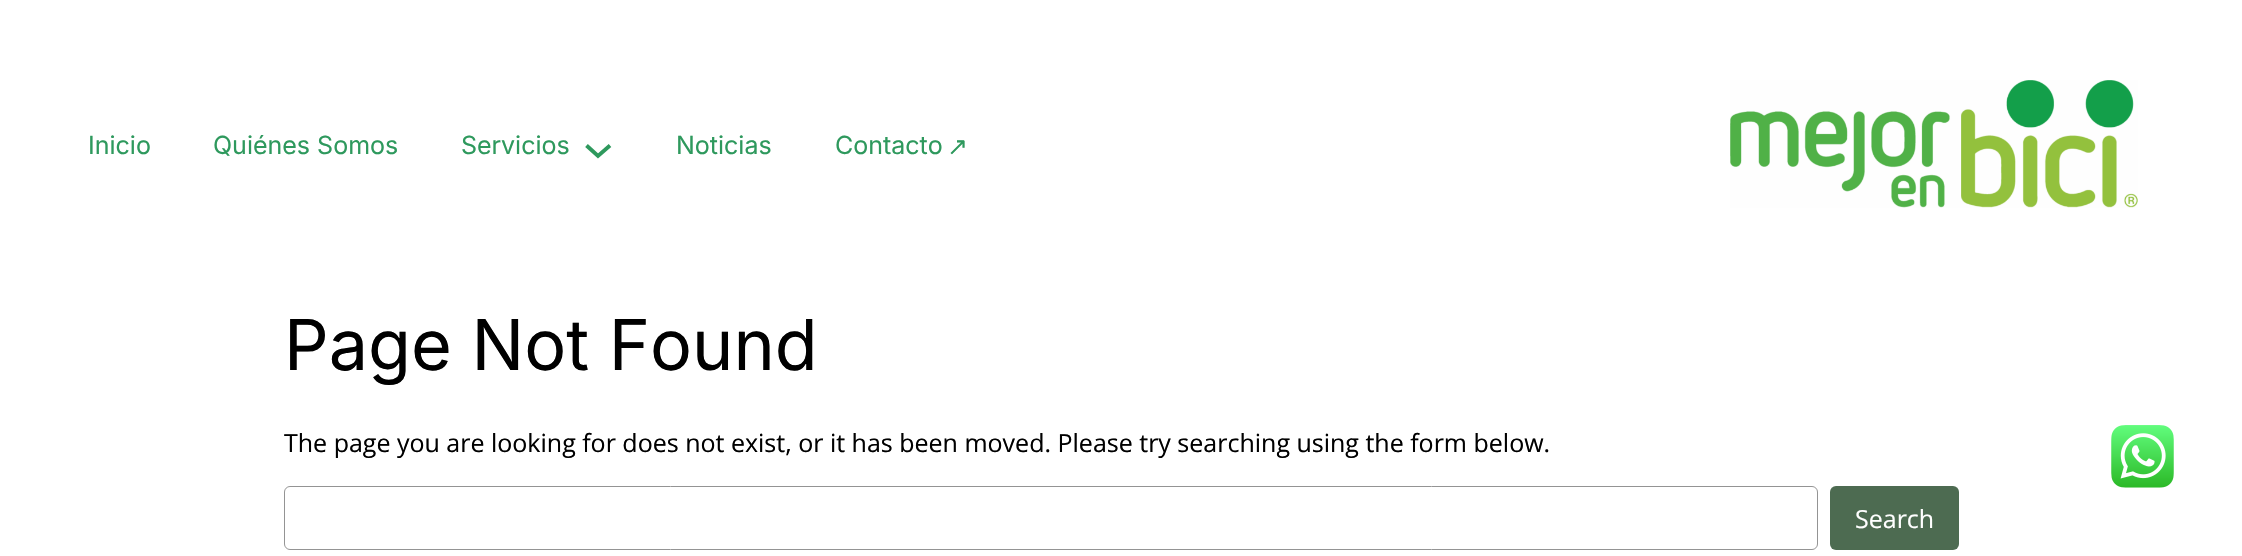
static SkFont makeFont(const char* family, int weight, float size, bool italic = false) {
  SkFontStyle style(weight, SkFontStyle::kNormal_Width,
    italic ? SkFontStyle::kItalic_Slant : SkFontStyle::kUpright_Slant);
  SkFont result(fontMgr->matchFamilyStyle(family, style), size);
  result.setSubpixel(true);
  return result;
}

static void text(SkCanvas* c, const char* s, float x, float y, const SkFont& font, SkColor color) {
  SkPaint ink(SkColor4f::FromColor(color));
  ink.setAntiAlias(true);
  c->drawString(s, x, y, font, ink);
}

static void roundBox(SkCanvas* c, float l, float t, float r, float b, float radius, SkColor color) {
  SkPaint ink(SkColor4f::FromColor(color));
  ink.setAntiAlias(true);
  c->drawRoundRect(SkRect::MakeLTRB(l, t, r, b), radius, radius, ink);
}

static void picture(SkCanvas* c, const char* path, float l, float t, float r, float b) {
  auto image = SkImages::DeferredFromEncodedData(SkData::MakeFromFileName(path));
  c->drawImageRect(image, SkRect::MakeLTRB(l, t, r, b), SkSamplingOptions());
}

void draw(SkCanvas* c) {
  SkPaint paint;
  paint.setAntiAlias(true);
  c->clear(0xffffffff);
  SkFont face1 = makeFont("Inter", 400, 25);
  text(c, "Inicio", 88, 154, face1, 0xff2e995d);
  text(c, "Quiénes Somos", 213, 154, face1, 0xff2e995d);
  text(c, "Servicios", 461, 154, face1, 0xff2e995d);
  paint.setStyle(SkPaint::kStroke_Style);
  paint.setStrokeWidth(3.9f);
  paint.setColor(0xff2e995d);
  c->drawPath(SkPathBuilder().moveTo(586.5f, 145.5f).lineTo(598, 156).lineTo(610, 145.5f).detach(), paint);
  text(c, "Noticias", 676, 154, face1, 0xff2e995d);
  text(c, "Contacto", 835, 154, face1, 0xff2e995d);
  SkFont face2 = makeFont("DejaVu Sans", 400, 25);
  text(c, "↗", 947, 155, face2, 0xff2e995d);
  picture(c, "img_01.png", 1730, 80, 2138, 208);
  SkFont face3 = makeFont("Inter", 400, 70);
  text(c, "Page Not Found", 284, 370, face3, 0xff000000);
  SkFont face4 = makeFont("Open Sans", 400, 25);
  text(c, "The page you are looking for does not exist, or it has been moved. Please try searching using the form below.", 284, 452, face4, 0xff000000);
  paint.setStrokeWidth(1);
  paint.setColor(0xff949494);
  c->drawRoundRect(SkRect::MakeLTRB(284.5f, 486.5f, 1817.5f, 549.5f), 5.5f, 5.5f, paint);
  roundBox(c, 1830, 486, 1959, 550, 6, 0xff4d6b51);
  text(c, "Search", 1855, 528, face4, 0xffffffff);
  picture(c, "img_02.png", 2111, 425, 2174, 488);
}
